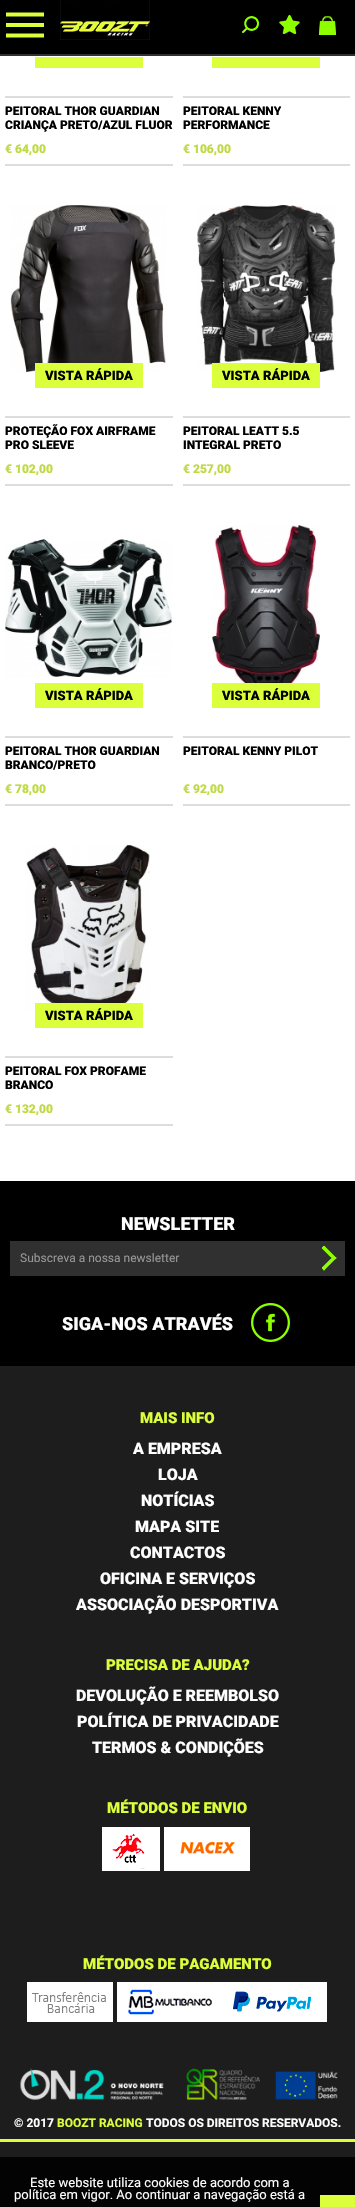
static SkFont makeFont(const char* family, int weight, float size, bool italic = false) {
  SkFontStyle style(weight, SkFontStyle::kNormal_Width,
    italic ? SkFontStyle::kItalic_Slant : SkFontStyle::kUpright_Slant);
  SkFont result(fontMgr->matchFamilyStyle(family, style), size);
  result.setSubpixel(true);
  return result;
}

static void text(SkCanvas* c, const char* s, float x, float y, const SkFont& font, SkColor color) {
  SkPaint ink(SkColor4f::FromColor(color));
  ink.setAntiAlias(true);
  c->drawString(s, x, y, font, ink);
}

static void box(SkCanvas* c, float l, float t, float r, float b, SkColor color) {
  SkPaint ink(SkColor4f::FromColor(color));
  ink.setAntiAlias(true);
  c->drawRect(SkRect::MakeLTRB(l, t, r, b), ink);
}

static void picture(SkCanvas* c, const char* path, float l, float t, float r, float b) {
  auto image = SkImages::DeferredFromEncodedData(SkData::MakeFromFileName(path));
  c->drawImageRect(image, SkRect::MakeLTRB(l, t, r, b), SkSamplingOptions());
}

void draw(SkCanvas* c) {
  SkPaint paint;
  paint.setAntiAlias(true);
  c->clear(0xffffffff);
  box(c, 0, 0, 355, 54, 0xff000000);
  paint.setColor(0xffdcff3b);
  c->drawPath(SkPathBuilder().moveTo(6, 37.5f).lineTo(44, 37.5f).lineTo(44, 33.5f).lineTo(6, 33.5f).close().moveTo(6, 27).lineTo(44, 27).lineTo(44, 23).lineTo(6, 23).close().moveTo(6, 12.5f).lineTo(6, 16.5f).lineTo(44, 16.5f).lineTo(44, 12.5f).close().detach(), paint);
  picture(c, "img_01.png", 60, 0, 150, 40);
  picture(c, "img_02.png", 242, 16, 259, 33);
  picture(c, "img_03.png", 279, 15, 300, 34);
  picture(c, "img_04.png", 319, 16, 336, 35);
  box(c, 0, 54, 355, 56, 0xff313131);
  box(c, 35, 57, 143, 68, 0xffdcff3b);
  box(c, 5, 96, 173, 98, 0xffdddddd);
  SkFont face1 = makeFont("Roboto", 900, 12);
  text(c, "PEITORAL THOR GUARDIAN", 5, 115, face1, 0xff000000);
  text(c, "CRIANÇA PRETO/AZUL FLUOR", 5, 129, face1, 0xff000000);
  box(c, 5, 164, 173, 166, 0xffdddddd);
  text(c, "€ 64,00", 5, 153, face1, 0xffbfda44);
  box(c, 212, 57, 320, 68, 0xffdcff3b);
  box(c, 183, 96, 350, 98, 0xffdddddd);
  text(c, "PEITORAL KENNY", 183, 115, face1, 0xff000000);
  text(c, "PERFORMANCE", 183, 129, face1, 0xff000000);
  box(c, 183, 164, 350, 166, 0xffdddddd);
  text(c, "€ 106,00", 183, 153, face1, 0xffbfda44);
  picture(c, "img_05.png", 10, 205, 166, 372);
  box(c, 35, 363, 143, 388, 0xffdcff3b);
  SkFont face2 = makeFont("Roboto", 900, 13);
  text(c, "VISTA RÁPIDA", 45, 380, face2, 0xff000000);
  box(c, 5, 416, 173, 418, 0xffdddddd);
  text(c, "PROTEÇÃO FOX AIRFRAME", 5, 435, face1, 0xff000000);
  text(c, "PRO SLEEVE", 5, 449, face1, 0xff000000);
  box(c, 5, 484, 173, 486, 0xffdddddd);
  text(c, "€ 102,00", 5, 473, face1, 0xffbfda44);
  picture(c, "img_06.png", 197, 205, 335, 372);
  box(c, 212, 363, 320, 388, 0xffdcff3b);
  text(c, "VISTA RÁPIDA", 222, 380, face2, 0xff000000);
  box(c, 183, 416, 350, 418, 0xffdddddd);
  text(c, "PEITORAL LEATT 5.5", 183, 435, face1, 0xff000000);
  text(c, "INTEGRAL PRETO", 183, 449, face1, 0xff000000);
  box(c, 183, 484, 350, 486, 0xffdddddd);
  text(c, "€ 257,00", 183, 473, face1, 0xffbfda44);
  picture(c, "img_07.png", 5, 539, 172, 677);
  box(c, 35, 683, 143, 708, 0xffdcff3b);
  text(c, "VISTA RÁPIDA", 45, 700, face2, 0xff000000);
  box(c, 5, 736, 173, 738, 0xffdddddd);
  text(c, "PEITORAL THOR GUARDIAN", 5, 755, face1, 0xff000000);
  text(c, "BRANCO/PRETO", 5, 769, face1, 0xff000000);
  box(c, 5, 804, 173, 806, 0xffdddddd);
  text(c, "€ 78,00", 5, 793, face1, 0xffbfda44);
  picture(c, "img_08.png", 212, 525, 320, 683);
  box(c, 212, 683, 320, 708, 0xffdcff3b);
  text(c, "VISTA RÁPIDA", 222, 700, face2, 0xff000000);
  box(c, 183, 736, 350, 738, 0xffdddddd);
  text(c, "PEITORAL KENNY PILOT", 183, 755, face1, 0xff000000);
  box(c, 183, 804, 350, 806, 0xffdddddd);
  text(c, "€ 92,00", 183, 793, face1, 0xffbfda44);
  picture(c, "img_09.png", 26, 845, 150, 1012);
  box(c, 35, 1003, 143, 1028, 0xffdcff3b);
  text(c, "VISTA RÁPIDA", 45, 1020, face2, 0xff000000);
  box(c, 5, 1056, 173, 1058, 0xffdddddd);
  text(c, "PEITORAL FOX PROFAME", 5, 1075, face1, 0xff000000);
  text(c, "BRANCO", 5, 1089, face1, 0xff000000);
  box(c, 5, 1124, 173, 1126, 0xffdddddd);
  text(c, "€ 132,00", 5, 1113, face1, 0xffbfda44);
  box(c, 0, 1366, 355, 2157, 0xff1d1d1d);
  box(c, 0, 1181, 355, 1366, 0xff000000);
  SkFont face3 = makeFont("Roboto", 900, 18);
  text(c, "NEWSLETTER", 121, 1230, face3, 0xffffffff);
  box(c, 10, 1241, 345, 1276, 0xff303030);
  SkFont face4 = makeFont("Roboto", 400, 12);
  text(c, "Subscreva a nossa newsletter", 20, 1262, face4, 0xff969696);
  picture(c, "img_10.png", 322, 1246, 337, 1271);
  text(c, "SIGA-NOS ATRAVÉS", 62, 1330, face3, 0xffffffff);
  picture(c, "img_11.png", 251, 1303, 290, 1342);
  SkFont face5 = makeFont("Roboto", 900, 15);
  text(c, "MAIS INFO", 140, 1423, face5, 0xffdcff3b);
  SkFont face6 = makeFont("Roboto", 900, 16);
  text(c, "A EMPRESA", 133, 1454, face6, 0xffffffff);
  text(c, "LOJA", 158, 1480, face6, 0xffffffff);
  text(c, "NOTÍCIAS", 141, 1506, face6, 0xffffffff);
  text(c, "MAPA SITE", 135, 1532, face6, 0xffffffff);
  text(c, "CONTACTOS", 130, 1558, face6, 0xffffffff);
  text(c, "OFICINA E SERVIÇOS", 100, 1584, face6, 0xffffffff);
  text(c, "ASSOCIAÇÃO DESPORTIVA", 76, 1610, face6, 0xffffffff);
  text(c, "PRECISA DE AJUDA?", 106, 1670, face5, 0xffdcff3b);
  text(c, "DEVOLUÇÃO E REEMBOLSO", 76, 1701, face6, 0xffffffff);
  text(c, "POLÍTICA DE PRIVACIDADE", 77, 1727, face6, 0xffffffff);
  text(c, "TERMOS & CONDIÇÕES", 92, 1753, face6, 0xffffffff);
  text(c, "MÉTODOS DE ENVIO", 107, 1813, face5, 0xffdcff3b);
  picture(c, "img_12.png", 102, 1827, 250, 1871);
  text(c, "MÉTODOS DE PAGAMENTO", 83, 1969, face5, 0xffdcff3b);
  picture(c, "img_13.png", 27, 1982, 327, 2022);
  box(c, 0, 2139, 355, 2142, 0xffdcff3b);
  picture(c, "img_14.png", 20, 2068, 338, 2100);
  SkFont face7 = makeFont("Roboto", 700, 12);
  text(c, "© 2017", 14, 2127, face7, 0xffffffff);
  text(c, "BOOZT RACING", 57, 2127, face7, 0xffdcff3b);
  text(c, "TODOS OS DIREITOS RESERVADOS.", 146, 2127, face7, 0xffffffff);
  box(c, 0, 2157, 355, 2207, 0xff030303);
  SkFont face8 = makeFont("Roboto", 400, 13);
  text(c, "Este website utiliza cookies de acordo com a", 30, 2187, face8, 0xffffffff);
  text(c, "política em vigor. Ao continuar a navegação está a", 14, 2199, face8, 0xffffffff);
  box(c, 320, 2195, 355, 2207, 0xffdcff3b);
}
